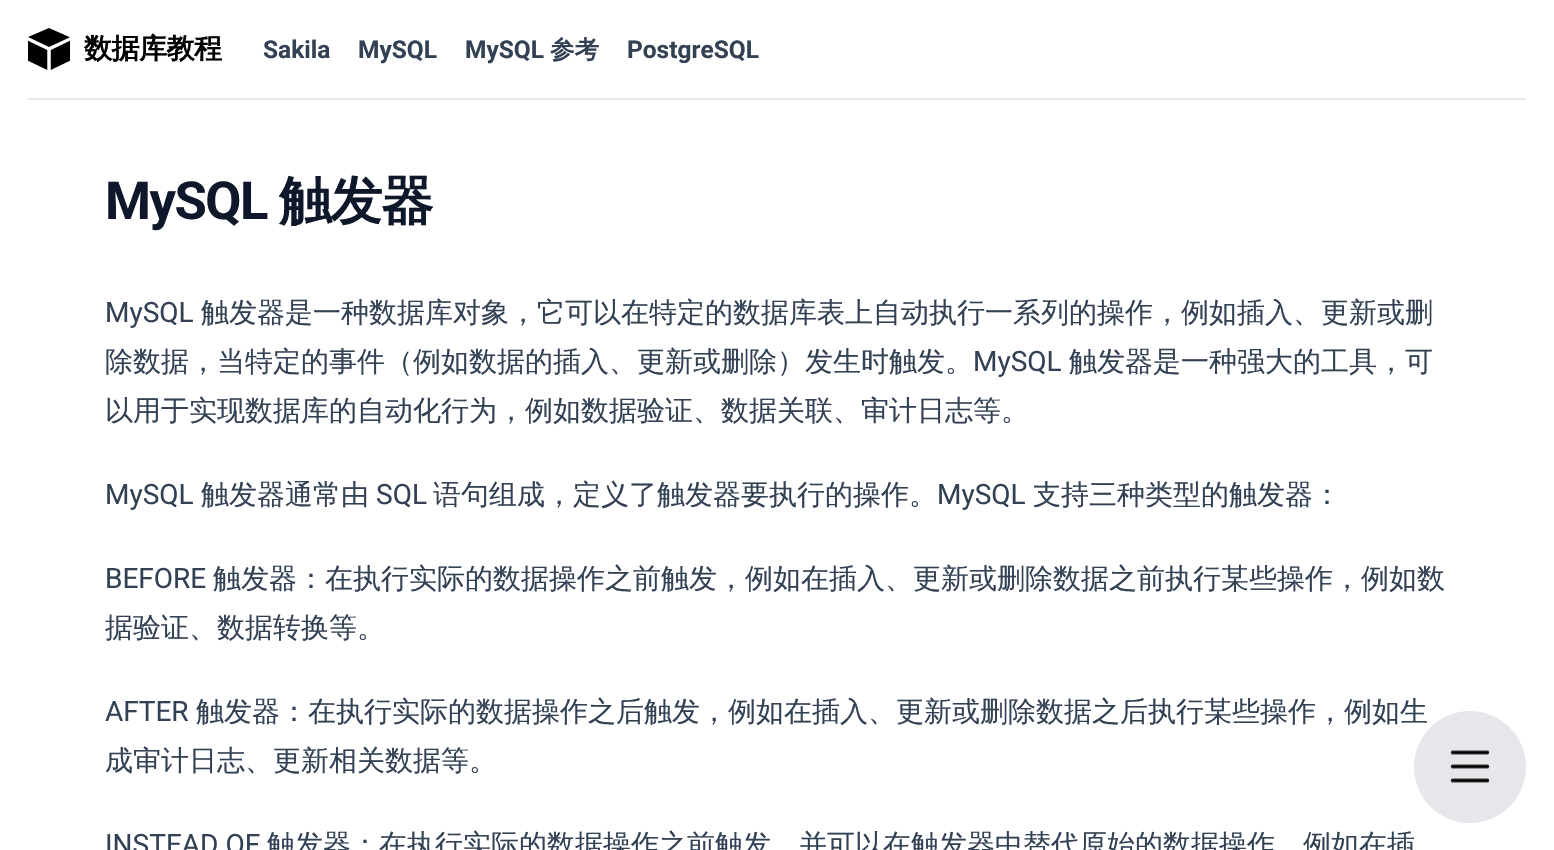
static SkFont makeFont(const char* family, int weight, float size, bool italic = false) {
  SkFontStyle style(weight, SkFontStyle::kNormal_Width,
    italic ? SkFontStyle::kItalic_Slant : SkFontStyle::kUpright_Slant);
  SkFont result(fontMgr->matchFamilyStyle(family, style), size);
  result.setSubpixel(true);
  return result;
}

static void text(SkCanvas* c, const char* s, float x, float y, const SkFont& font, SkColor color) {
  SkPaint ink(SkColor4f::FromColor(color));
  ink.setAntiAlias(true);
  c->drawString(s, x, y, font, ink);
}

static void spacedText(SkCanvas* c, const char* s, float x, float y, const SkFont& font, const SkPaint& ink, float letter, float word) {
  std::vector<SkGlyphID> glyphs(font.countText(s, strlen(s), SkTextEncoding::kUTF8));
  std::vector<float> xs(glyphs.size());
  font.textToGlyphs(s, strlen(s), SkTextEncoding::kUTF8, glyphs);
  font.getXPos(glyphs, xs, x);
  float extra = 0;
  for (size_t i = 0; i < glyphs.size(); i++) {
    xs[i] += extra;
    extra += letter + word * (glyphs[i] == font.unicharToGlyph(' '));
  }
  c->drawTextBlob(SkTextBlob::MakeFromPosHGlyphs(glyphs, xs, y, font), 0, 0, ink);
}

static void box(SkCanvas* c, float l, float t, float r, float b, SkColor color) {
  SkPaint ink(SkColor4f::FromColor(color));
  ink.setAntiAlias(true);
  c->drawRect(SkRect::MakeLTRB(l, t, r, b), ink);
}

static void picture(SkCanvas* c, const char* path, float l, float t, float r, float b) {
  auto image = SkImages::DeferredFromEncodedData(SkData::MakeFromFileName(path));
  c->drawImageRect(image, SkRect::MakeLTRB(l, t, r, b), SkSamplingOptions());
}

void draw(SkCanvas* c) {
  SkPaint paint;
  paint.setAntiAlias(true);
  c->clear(0xffffffff);
  box(c, 28, 98, 1526, 100, 0xffe7e8ea);
  picture(c, "img_01.png", 28, 28, 70, 70);
  SkFont face1 = makeFont("WenQuanYi Zen Hei", 700, 28);
  paint.setColor(0xff000000);
  spacedText(c, "数据库教程", 84, 58, face1, paint, -0.5f, 0);
  SkFont face2 = makeFont("Roboto", 700, 24.5f);
  text(c, "Sakila", 263, 58, face2, 0xff334155);
  text(c, "MySQL", 358, 58, face2, 0xff334155);
  text(c, "MySQL", 465, 58, face2, 0xff334155);
  SkFont face3 = makeFont("WenQuanYi Zen Hei", 700, 24.5f);
  text(c, "参考", 550, 58, face3, 0xff334155);
  text(c, "PostgreSQL", 627, 58, face2, 0xff334155);
  SkFont face4 = makeFont("Roboto", 700, 52.5f);
  paint.setColor(0xff0f172a);
  spacedText(c, "MySQL", 105, 219, face4, paint, -1.5f, 0);
  SkFont face5 = makeFont("WenQuanYi Zen Hei", 700, 52.5f);
  spacedText(c, "触发器", 279, 219, face5, paint, -1.5f, 0);
  SkFont face6 = makeFont("Roboto", 400, 28);
  text(c, "MySQL", 105, 322, face6, 0xff334155);
  SkFont face7 = makeFont("WenQuanYi Zen Hei", 500, 28);
  text(c, "触发器是一种数据库对象，它可以在特定的数据库表上自动执行一系列的操作，例如插入、更新或删", 201, 322, face7, 0xff334155);
  text(c, "除数据，当特定的事件（例如数据的插入、更新或删除）发生时触发。", 105, 371, face7, 0xff334155);
  text(c, "MySQL", 973, 371, face6, 0xff334155);
  text(c, "触发器是一种强大的工具，可", 1069, 371, face7, 0xff334155);
  text(c, "以用于实现数据库的自动化行为，例如数据验证、数据关联、审计日志等。", 105, 420, face7, 0xff334155);
  text(c, "MySQL", 105, 504, face6, 0xff334155);
  text(c, "触发器通常由", 201, 504, face7, 0xff334155);
  text(c, "SQL", 376, 504, face6, 0xff334155);
  text(c, "语句组成，定义了触发器要执行的操作。", 433, 504, face7, 0xff334155);
  text(c, "MySQL", 937, 504, face6, 0xff334155);
  text(c, "支持三种类型的触发器：", 1033, 504, face7, 0xff334155);
  text(c, "BEFORE", 105, 588, face6, 0xff334155);
  text(c, "触发器：在执行实际的数据操作之前触发，例如在插入、更新或删除数据之前执行某些操作，例如数", 213, 588, face7, 0xff334155);
  text(c, "据验证、数据转换等。", 105, 637, face7, 0xff334155);
  text(c, "AFTER", 105, 721, face6, 0xff334155);
  text(c, "触发器：在执行实际的数据操作之后触发，例如在插入、更新或删除数据之后执行某些操作，例如生", 196, 721, face7, 0xff334155);
  text(c, "成审计日志、更新相关数据等。", 105, 770, face7, 0xff334155);
  text(c, "INSTEAD OF", 105, 854, face6, 0xff334155);
  text(c, "触发器：在执行实际的数据操作之前触发，并可以在触发器中替代原始的数据操作，例如在插", 267, 854, face7, 0xff334155);
  paint.setColor(0xffe5e7eb);
  c->drawCircle(1470, 767, 56, paint);
  picture(c, "img_02.png", 1450, 750, 1490, 783);
}
